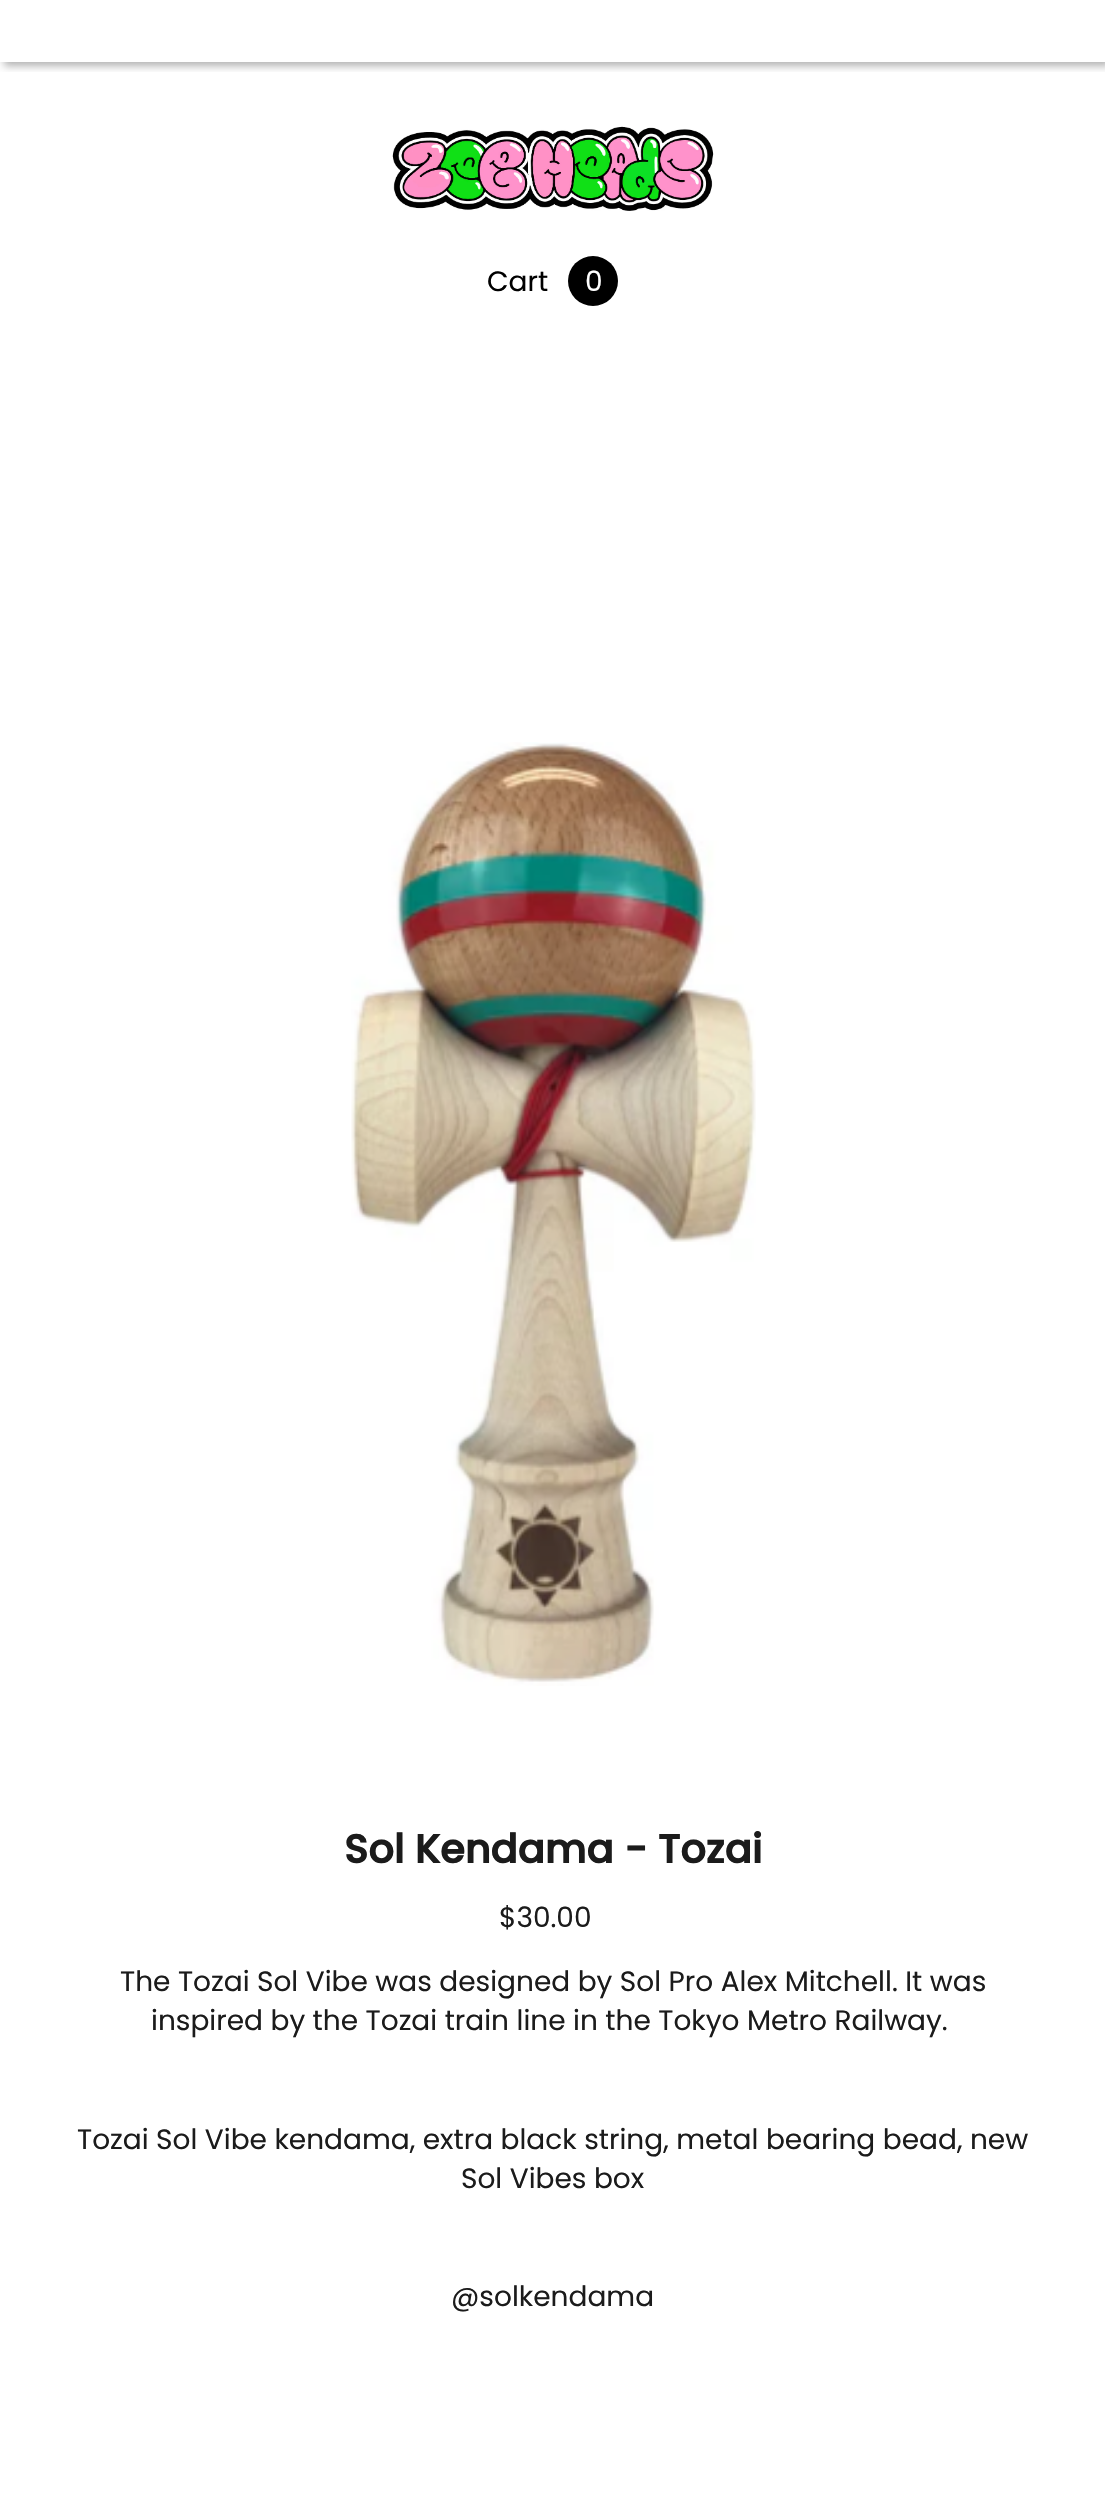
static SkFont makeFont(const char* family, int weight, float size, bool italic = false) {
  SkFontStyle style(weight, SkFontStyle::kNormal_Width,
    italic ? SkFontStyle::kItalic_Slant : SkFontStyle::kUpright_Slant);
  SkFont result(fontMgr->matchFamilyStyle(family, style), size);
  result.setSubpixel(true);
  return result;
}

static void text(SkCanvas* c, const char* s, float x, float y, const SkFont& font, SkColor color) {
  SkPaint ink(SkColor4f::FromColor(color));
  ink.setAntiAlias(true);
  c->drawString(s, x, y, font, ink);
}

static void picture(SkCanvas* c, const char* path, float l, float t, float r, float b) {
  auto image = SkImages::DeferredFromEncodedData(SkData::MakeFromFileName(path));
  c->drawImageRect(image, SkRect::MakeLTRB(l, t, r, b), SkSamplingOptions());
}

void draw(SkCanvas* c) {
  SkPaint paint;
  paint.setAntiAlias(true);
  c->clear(0xffffffff);
  c->save();
  c->clipRect(SkRect::MakeLTRB(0, 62, 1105, 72));
  paint.setColor(0x4d000000);
  paint.setMaskFilter(SkMaskFilter::MakeBlur(kNormal_SkBlurStyle, 4));
  c->drawRect(SkRect::MakeLTRB(4, 4, 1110, 66), paint);
  paint.setMaskFilter(nullptr);
  c->restore();
  picture(c, "img_01.png", 392, 126, 714, 211);
  SkFont face1 = makeFont("Poppins", 400, 28);
  text(c, "Cart", 487, 291, face1, 0xff000000);
  paint.setColor(0xff000000);
  c->drawCircle(593, 281, 25, paint);
  text(c, "0", 585, 291, face1, 0xffffffff);
  picture(c, "img_02.png", 351, 742, 756, 1686);
  SkFont face2 = makeFont("Poppins", 700, 40);
  text(c, "Sol Kendama - Tozai", 344, 1863, face2, 0xff1b1b1b);
  text(c, "$30.00", 499, 1927, face1, 0xff1b1b1b);
  text(c, "The Tozai Sol Vibe was designed by Sol Pro Alex Mitchell. It was", 120, 1991, face1, 0xff1b1b1b);
  text(c, "inspired by the Tozai train line in the Tokyo Metro Railway.", 151, 2030, face1, 0xff1b1b1b);
  text(c, "Tozai Sol Vibe kendama, extra black string, metal bearing bead, new", 77, 2149, face1, 0xff1b1b1b);
  text(c, "Sol Vibes box", 461, 2188, face1, 0xff1b1b1b);
  text(c, "@solkendama", 451, 2306, face1, 0xff1b1b1b);
}
